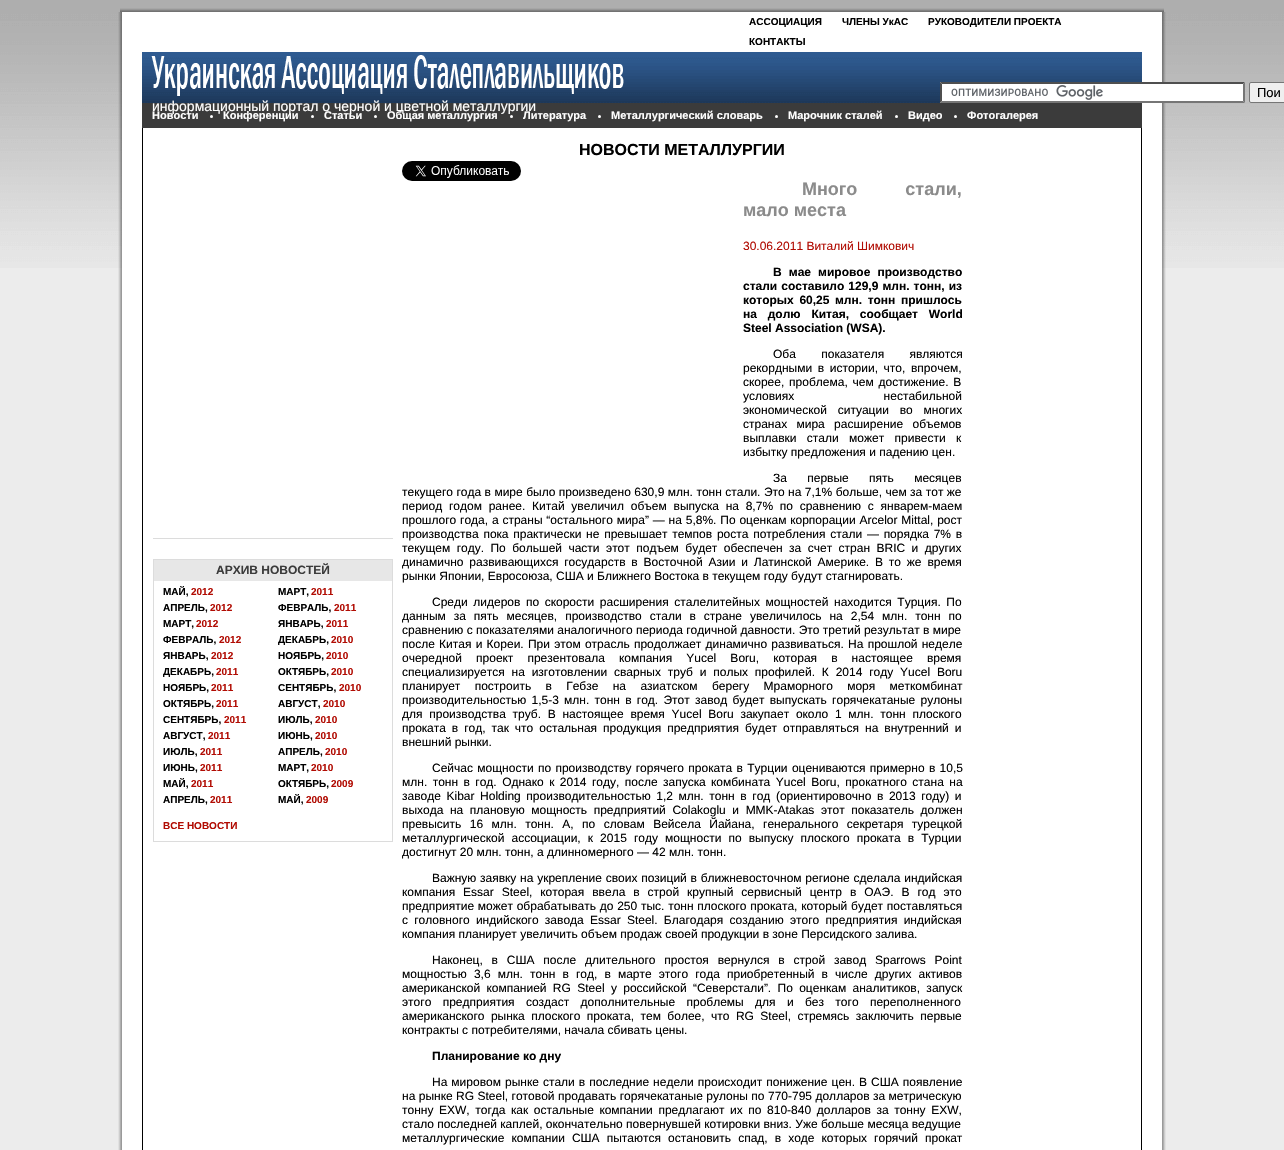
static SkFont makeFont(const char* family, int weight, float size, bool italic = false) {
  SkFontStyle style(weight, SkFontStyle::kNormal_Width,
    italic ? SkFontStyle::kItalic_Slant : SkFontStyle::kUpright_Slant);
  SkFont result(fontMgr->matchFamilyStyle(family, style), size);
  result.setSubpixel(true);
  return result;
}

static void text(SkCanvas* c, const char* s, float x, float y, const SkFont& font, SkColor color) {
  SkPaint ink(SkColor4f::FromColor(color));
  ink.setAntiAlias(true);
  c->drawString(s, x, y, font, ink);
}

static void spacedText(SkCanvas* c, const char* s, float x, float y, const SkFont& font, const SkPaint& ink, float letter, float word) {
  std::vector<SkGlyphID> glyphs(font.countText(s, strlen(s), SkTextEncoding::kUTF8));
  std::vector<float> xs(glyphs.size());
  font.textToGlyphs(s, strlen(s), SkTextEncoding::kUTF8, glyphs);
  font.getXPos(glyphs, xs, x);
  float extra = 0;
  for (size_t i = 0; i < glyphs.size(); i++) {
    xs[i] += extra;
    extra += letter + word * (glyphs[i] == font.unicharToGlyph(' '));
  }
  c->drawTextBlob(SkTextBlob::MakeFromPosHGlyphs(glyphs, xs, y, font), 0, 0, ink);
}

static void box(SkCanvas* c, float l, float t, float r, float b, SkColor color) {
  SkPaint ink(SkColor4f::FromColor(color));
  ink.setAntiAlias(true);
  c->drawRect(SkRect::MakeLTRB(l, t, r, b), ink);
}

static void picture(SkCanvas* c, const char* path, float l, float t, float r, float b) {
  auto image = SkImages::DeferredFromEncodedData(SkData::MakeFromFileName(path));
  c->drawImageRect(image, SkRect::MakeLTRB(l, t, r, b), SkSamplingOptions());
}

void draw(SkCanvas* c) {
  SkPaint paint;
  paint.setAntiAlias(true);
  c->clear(0xffececec);
  picture(c, "img_01.png", 0, 0, 1284, 268);
  picture(c, "img_02.png", 120, 8, 1164, 12);
  picture(c, "img_03.png", 118, 12, 122, 1150);
  picture(c, "img_04.png", 1162, 12, 1166, 1150);
  box(c, 122, 12, 1162, 1150, 0xffffffff);
  SkFont face1 = makeFont("Liberation Sans", 700, 10);
  text(c, "АССОЦИАЦИЯ", 749, 25, face1, 0xff000000);
  text(c, "ЧЛЕНЫ УкАС", 842, 25, face1, 0xff000000);
  text(c, "РУКОВОДИТЕЛИ ПРОЕКТА", 928, 25, face1, 0xff000000);
  text(c, "КОНТАКТЫ", 749, 45, face1, 0xff000000);
  picture(c, "img_06.png", 142, 52, 1142, 103);
  box(c, 940, 82, 1245, 103, 0xffffffff);
  picture(c, "img_05.png", 951, 85, 1103, 100);
  paint.setColor(0xff4f4f4f);
  c->drawPath(SkPathBuilder().moveTo(940, 82).lineTo(1245, 82).lineTo(1243, 84).lineTo(942, 84).close().detach(), paint);
  paint.setColor(0xff767676);
  c->drawPath(SkPathBuilder().moveTo(1245, 82).lineTo(1245, 103).lineTo(1243, 101).lineTo(1243, 84).close().detach(), paint);
  c->drawPath(SkPathBuilder().moveTo(1245, 103).lineTo(940, 103).lineTo(942, 101).lineTo(1243, 101).close().detach(), paint);
  paint.setColor(0xff4f4f4f);
  c->drawPath(SkPathBuilder().moveTo(940, 103).lineTo(940, 82).lineTo(942, 84).lineTo(942, 101).close().detach(), paint);
  paint.setColor(0xffefefef);
  c->drawRoundRect(SkRect::MakeLTRB(1249.5f, 82.5f, 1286.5f, 102.5f), 1.5f, 1.5f, paint);
  paint.setStyle(SkPaint::kStroke_Style);
  paint.setStrokeWidth(1);
  paint.setColor(0xff767676);
  c->drawRoundRect(SkRect::MakeLTRB(1249.5f, 82.5f, 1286.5f, 102.5f), 1.5f, 1.5f, paint);
  SkFont face2 = makeFont("Liberation Sans", 400, 13);
  text(c, "Пои", 1257, 97, face2, 0xff000000);
  box(c, 142, 103, 1142, 128, 0xff3b3b3b);
  SkFont face3 = makeFont("Liberation Sans", 700, 11);
  text(c, "Новости", 152, 119, face3, 0xffffffff);
  paint.setStyle(SkPaint::kFill_Style);
  paint.setColor(0xffffffff);
  c->drawCircle(211.5f, 116.5f, 1.5f, paint);
  text(c, "Конференции", 223, 119, face3, 0xffffffff);
  c->drawCircle(312.5f, 116.5f, 1.5f, paint);
  text(c, "Статьи", 324, 119, face3, 0xffffffff);
  c->drawCircle(375.5f, 116.5f, 1.5f, paint);
  text(c, "Общая металлургия", 387, 119, face3, 0xffffffff);
  c->drawCircle(511.5f, 116.5f, 1.5f, paint);
  text(c, "Литература", 523, 119, face3, 0xffffffff);
  c->drawCircle(599.5f, 116.5f, 1.5f, paint);
  text(c, "Металлургический словарь", 611, 119, face3, 0xffffffff);
  c->drawCircle(776.5f, 116.5f, 1.5f, paint);
  text(c, "Марочник сталей", 788, 119, face3, 0xffffffff);
  c->drawCircle(896.5f, 116.5f, 1.5f, paint);
  text(c, "Видео", 908, 119, face3, 0xffffffff);
  c->drawCircle(955.5f, 116.5f, 1.5f, paint);
  text(c, "Фотогалерея", 967, 119, face3, 0xffffffff);
  picture(c, "img_07.png", 151, 55, 624, 96);
  SkFont face4 = makeFont("Liberation Sans", 400, 14);
  text(c, "информационный портал о черной и цветной металлургии", 152, 111, face4, 0xffffffff);
  box(c, 142, 128, 143, 1150, 0xff000000);
  box(c, 153, 538, 393, 539, 0xffdcdcdc);
  box(c, 154, 560, 392, 581, 0xffe7e7e7);
  paint.setStyle(SkPaint::kStroke_Style);
  paint.setColor(0xffdcdcdc);
  c->drawRect(SkRect::MakeLTRB(153.5f, 559.5f, 392.5f, 841.5f), paint);
  SkFont face5 = makeFont("Liberation Sans", 700, 12);
  text(c, "АРХИВ НОВОСТЕЙ", 216, 574, face5, 0xff3b3b3b);
  text(c, "МАЙ,", 163, 595, face1, 0xff000000);
  text(c, "2012", 191, 595, face1, 0xffb10c03);
  text(c, "АПРЕЛЬ,", 163, 611, face1, 0xff000000);
  text(c, "2012", 210, 611, face1, 0xffb10c03);
  text(c, "МАРТ,", 163, 627, face1, 0xff000000);
  text(c, "2012", 196, 627, face1, 0xffb10c03);
  text(c, "ФЕВРАЛЬ,", 163, 643, face1, 0xff000000);
  text(c, "2012", 219, 643, face1, 0xffb10c03);
  text(c, "ЯНВАРЬ,", 163, 659, face1, 0xff000000);
  text(c, "2012", 211, 659, face1, 0xffb10c03);
  text(c, "ДЕКАБРЬ,", 163, 675, face1, 0xff000000);
  text(c, "2011", 216, 675, face1, 0xffb10c03);
  text(c, "НОЯБРЬ,", 163, 691, face1, 0xff000000);
  text(c, "2011", 211, 691, face1, 0xffb10c03);
  text(c, "ОКТЯБРЬ,", 163, 707, face1, 0xff000000);
  text(c, "2011", 216, 707, face1, 0xffb10c03);
  text(c, "СЕНТЯБРЬ,", 163, 723, face1, 0xff000000);
  text(c, "2011", 224, 723, face1, 0xffb10c03);
  text(c, "АВГУСТ,", 163, 739, face1, 0xff000000);
  text(c, "2011", 208, 739, face1, 0xffb10c03);
  text(c, "ИЮЛЬ,", 163, 755, face1, 0xff000000);
  text(c, "2011", 200, 755, face1, 0xffb10c03);
  text(c, "ИЮНЬ,", 163, 771, face1, 0xff000000);
  text(c, "2011", 200, 771, face1, 0xffb10c03);
  text(c, "МАЙ,", 163, 787, face1, 0xff000000);
  text(c, "2011", 191, 787, face1, 0xffb10c03);
  text(c, "АПРЕЛЬ,", 163, 803, face1, 0xff000000);
  text(c, "2011", 210, 803, face1, 0xffb10c03);
  text(c, "МАРТ,", 278, 595, face1, 0xff000000);
  text(c, "2011", 311, 595, face1, 0xffb10c03);
  text(c, "ФЕВРАЛЬ,", 278, 611, face1, 0xff000000);
  text(c, "2011", 334, 611, face1, 0xffb10c03);
  text(c, "ЯНВАРЬ,", 278, 627, face1, 0xff000000);
  text(c, "2011", 326, 627, face1, 0xffb10c03);
  text(c, "ДЕКАБРЬ,", 278, 643, face1, 0xff000000);
  text(c, "2010", 331, 643, face1, 0xffb10c03);
  text(c, "НОЯБРЬ,", 278, 659, face1, 0xff000000);
  text(c, "2010", 326, 659, face1, 0xffb10c03);
  text(c, "ОКТЯБРЬ,", 278, 675, face1, 0xff000000);
  text(c, "2010", 331, 675, face1, 0xffb10c03);
  text(c, "СЕНТЯБРЬ,", 278, 691, face1, 0xff000000);
  text(c, "2010", 339, 691, face1, 0xffb10c03);
  text(c, "АВГУСТ,", 278, 707, face1, 0xff000000);
  text(c, "2010", 323, 707, face1, 0xffb10c03);
  text(c, "ИЮЛЬ,", 278, 723, face1, 0xff000000);
  text(c, "2010", 315, 723, face1, 0xffb10c03);
  text(c, "ИЮНЬ,", 278, 739, face1, 0xff000000);
  text(c, "2010", 315, 739, face1, 0xffb10c03);
  text(c, "АПРЕЛЬ,", 278, 755, face1, 0xff000000);
  text(c, "2010", 325, 755, face1, 0xffb10c03);
  text(c, "МАРТ,", 278, 771, face1, 0xff000000);
  text(c, "2010", 311, 771, face1, 0xffb10c03);
  text(c, "ОКТЯБРЬ,", 278, 787, face1, 0xff000000);
  text(c, "2009", 331, 787, face1, 0xffb10c03);
  text(c, "МАЙ,", 278, 803, face1, 0xff000000);
  text(c, "2009", 306, 803, face1, 0xffb10c03);
  text(c, "ВСЕ НОВОСТИ", 163, 829, face1, 0xffb10c03);
  SkFont face6 = makeFont("Liberation Sans", 700, 16);
  text(c, "НОВОСТИ МЕТАЛЛУРГИИ", 579, 155, face6, 0xff000000);
  picture(c, "img_08.png", 402, 161, 521, 181);
  SkFont face7 = makeFont("Liberation Sans", 700, 18);
  paint.setStyle(SkPaint::kFill_Style);
  paint.setColor(0xff8b8b8b);
  spacedText(c, "Много стали,", 802, 195, face7, paint, 0, 43);
  text(c, "мало места", 743, 216, face7, 0xff8b8b8b);
  SkFont face8 = makeFont("Liberation Sans", 400, 12);
  text(c, "30.06.2011 Виталий Шимкович", 743, 250, face8, 0xffb10c03);
  paint.setColor(0xff000000);
  spacedText(c, "В мае мировое производство", 773, 276, face5, paint, 0, 3.75f);
  spacedText(c, "стали составило 129,9 млн. тонн, из", 743, 290, face5, paint, 0, 0.75f);
  spacedText(c, "которых 60,25 млн. тонн пришлось", 743, 304, face5, paint, 0, 2.25f);
  spacedText(c, "на долю Китая, сообщает World", 743, 318, face5, paint, 0, 7.5f);
  text(c, "Steel Association (WSA).", 743, 332, face5, 0xff000000);
  spacedText(c, "Оба показателя являются", 773, 358, face8, paint, 0, 22);
  spacedText(c, "рекордными в истории, что, впрочем,", 743, 372, face8, paint, 0, 2.25f);
  spacedText(c, "скорее, проблема, чем достижение. В", 743, 386, face8, paint, 0, 1.5f);
  spacedText(c, "условиях нестабильной", 743, 400, face8, paint, 0, 86);
  spacedText(c, "экономической ситуации во многих", 743, 414, face8, paint, 0, 7.5f);
  spacedText(c, "странах мира расширение объемов", 743, 428, face8, paint, 0, 6);
  spacedText(c, "выплавки стали может привести к", 743, 442, face8, paint, 0, 7);
  text(c, "избытку предложения и падению цен.", 743, 456, face8, 0xff000000);
  spacedText(c, "За первые пять месяцев", 773, 482, face8, paint, 0, 17);
  spacedText(c, "текущего года в мире было произведено 630,9 млн. тонн стали. Это на 7,1% больше, чем за тот же", 402, 496, face8, paint, 0, 0.1f);
  spacedText(c, "период годом ранее. Китай увеличил объем выпуска на 8,7% по сравнению с январем-маем", 402, 510, face8, paint, 0, 3.4f);
  spacedText(c, "прошлого года, а страны “остального мира” — на 5,8%. По оценкам корпорации Arcelor Mittal, рост", 402, 524, face8, paint, 0, 0.5f);
  spacedText(c, "производства пока практически не превышает темпов роста потребления стали — порядка 7% в", 402, 538, face8, paint, 0, 1.4f);
  spacedText(c, "текущем году. По большей части этот подъем будет обеспечен за счет стран BRIC и других", 402, 552, face8, paint, 0, 3.1f);
  spacedText(c, "динамично развивающихся государств в Восточной Азии и Латинской Америке. В то же время", 402, 566, face8, paint, 0, 2.5f);
  text(c, "рынки Японии, Евросоюза, США и Ближнего Востока в текущем году будут стагнировать.", 402, 580, face8, 0xff000000);
  spacedText(c, "Среди лидеров по скорости расширения сталелитейных мощностей находится Турция. По", 432, 606, face8, paint, 0, 2.25f);
  spacedText(c, "данным за пять месяцев, производство стали в стране увеличилось на 2,54 млн. тонн по", 402, 620, face8, paint, 0, 4.6f);
  text(c, "сравнению с показателями аналогичного периода годичной давности. Это третий результат в мире", 402, 634, face8, 0xff000000);
  spacedText(c, "после Китая и Кореи. При этом отрасль продолжает динамично развиваться. На прошлой неделе", 402, 648, face8, paint, 0, 0.9f);
  spacedText(c, "очередной проект презентовала компания Yucel Boru, которая в настоящее время", 402, 662, face8, paint, 0, 10.75f);
  spacedText(c, "специализируется на изготовлении сварных труб и полых профилей. К 2014 году Yucel Boru", 402, 676, face8, paint, 0, 3.5f);
  spacedText(c, "планирует построить в Гебзе на азиатском берегу Мраморного моря меткомбинат", 402, 690, face8, paint, 0, 11);
  spacedText(c, "производительностью 1,5-3 млн. тонн в год. Этот завод будет выпускать горячекатаные рулоны", 402, 704, face8, paint, 0, 1.9f);
  spacedText(c, "для производства труб. В настоящее время Yucel Boru закупает около 1 млн. тонн плоского", 402, 718, face8, paint, 0, 3.4f);
  spacedText(c, "проката в год, так что остальная продукция предприятия будет отправляться на внутренний и", 402, 732, face8, paint, 0, 2.6f);
  text(c, "внешний рынки.", 402, 746, face8, 0xff000000);
  spacedText(c, "Сейчас мощности по производству горячего проката в Турции оцениваются примерно в 10,5", 432, 772, face8, paint, 0, 1);
  spacedText(c, "млн. тонн в год. Однако к 2014 году, после запуска комбината Yucel Boru, прокатного стана на", 402, 786, face8, paint, 0, 2.1f);
  spacedText(c, "заводе Kibar Holding производительностью 1,2 млн. тонн в год (ориентировочно в 2013 году) и", 402, 800, face8, paint, 0, 2.25f);
  spacedText(c, "выхода на плановую мощность предприятий Colakoglu и MMK-Atakas этот показатель должен", 402, 814, face8, paint, 0, 3.25f);
  spacedText(c, "превысить 16 млн. тонн. А, по словам Вейсела Йайана, генерального секретаря турецкой", 402, 828, face8, paint, 0, 5.1f);
  spacedText(c, "металлургической ассоциации, к 2015 году мощности по выпуску плоского проката в Турции", 402, 842, face8, paint, 0, 3.75f);
  text(c, "достигнут 20 млн. тонн, а длинномерного — 42 млн. тонн.", 402, 856, face8, 0xff000000);
  spacedText(c, "Важную заявку на укрепление своих позиций в ближневосточном регионе сделала индийская", 432, 882, face8, paint, 0, 0.4f);
  spacedText(c, "компания Essar Steel, которая ввела в строй крупный сервисный центр в ОАЭ. В год это", 402, 896, face8, paint, 0, 4.6f);
  spacedText(c, "предприятие может обрабатывать до 250 тыс. тонн плоского проката, который будет поставляться", 402, 910, face8, paint, 0, 0.4f);
  spacedText(c, "с головного индийского завода Essar Steel. Благодаря созданию этого предприятия индийская", 402, 924, face8, paint, 0, 2.9f);
  text(c, "компания планирует увеличить объем продаж своей продукции в зоне Персидского залива.", 402, 938, face8, 0xff000000);
  spacedText(c, "Наконец, в США после длительного простоя вернулся в строй завод Sparrows Point", 432, 964, face8, paint, 0, 5.5f);
  spacedText(c, "мощностью 3,6 млн. тонн в год, в марте этого года приобретенный в числе других активов", 402, 978, face8, paint, 0, 3.75f);
  spacedText(c, "американской компанией RG Steel у российской “Северстали”. По оценкам аналитиков, запуск", 402, 992, face8, paint, 0, 3);
  spacedText(c, "этого предприятия создаст дополнительные проблемы для и без того переполненного", 402, 1006, face8, paint, 0, 8);
  spacedText(c, "американского рынка плоского проката, тем более, что RG Steel, стремясь заключить первые", 402, 1020, face8, paint, 0, 3.1f);
  text(c, "контракты с потребителями, начала сбивать цены.", 402, 1034, face8, 0xff000000);
  text(c, "Планирование ко дну", 432, 1060, face5, 0xff000000);
  spacedText(c, "На мировом рынке стали в последние недели происходит понижение цен. В США появление", 432, 1086, face8, paint, 0, 0.7f);
  spacedText(c, "на рынке RG Steel, готовой продавать горячекатаные рулоны по 770-795 долларов за метрическую", 402, 1100, face8, paint, 0, 0.1f);
  spacedText(c, "тонну EXW, тогда как остальные компании предлагают их по 810-840 долларов за тонну EXW,", 402, 1114, face8, paint, 0, 2.25f);
  text(c, "стало последней каплей, окончательно повернувшей котировки вниз. Уже больше месяца ведущие", 402, 1128, face8, 0xff000000);
  spacedText(c, "металлургические компании США пытаются остановить спад, в ходе которых горячий прокат", 402, 1142, face8, paint, 0, 3.75f);
  box(c, 1141, 128, 1142, 1150, 0xff000000);
}
